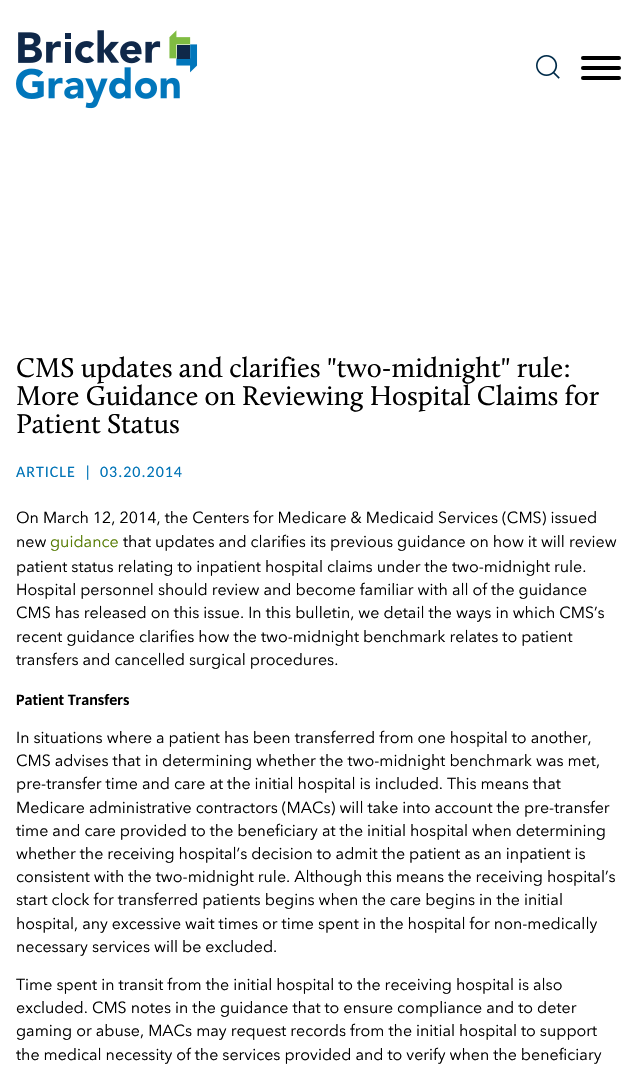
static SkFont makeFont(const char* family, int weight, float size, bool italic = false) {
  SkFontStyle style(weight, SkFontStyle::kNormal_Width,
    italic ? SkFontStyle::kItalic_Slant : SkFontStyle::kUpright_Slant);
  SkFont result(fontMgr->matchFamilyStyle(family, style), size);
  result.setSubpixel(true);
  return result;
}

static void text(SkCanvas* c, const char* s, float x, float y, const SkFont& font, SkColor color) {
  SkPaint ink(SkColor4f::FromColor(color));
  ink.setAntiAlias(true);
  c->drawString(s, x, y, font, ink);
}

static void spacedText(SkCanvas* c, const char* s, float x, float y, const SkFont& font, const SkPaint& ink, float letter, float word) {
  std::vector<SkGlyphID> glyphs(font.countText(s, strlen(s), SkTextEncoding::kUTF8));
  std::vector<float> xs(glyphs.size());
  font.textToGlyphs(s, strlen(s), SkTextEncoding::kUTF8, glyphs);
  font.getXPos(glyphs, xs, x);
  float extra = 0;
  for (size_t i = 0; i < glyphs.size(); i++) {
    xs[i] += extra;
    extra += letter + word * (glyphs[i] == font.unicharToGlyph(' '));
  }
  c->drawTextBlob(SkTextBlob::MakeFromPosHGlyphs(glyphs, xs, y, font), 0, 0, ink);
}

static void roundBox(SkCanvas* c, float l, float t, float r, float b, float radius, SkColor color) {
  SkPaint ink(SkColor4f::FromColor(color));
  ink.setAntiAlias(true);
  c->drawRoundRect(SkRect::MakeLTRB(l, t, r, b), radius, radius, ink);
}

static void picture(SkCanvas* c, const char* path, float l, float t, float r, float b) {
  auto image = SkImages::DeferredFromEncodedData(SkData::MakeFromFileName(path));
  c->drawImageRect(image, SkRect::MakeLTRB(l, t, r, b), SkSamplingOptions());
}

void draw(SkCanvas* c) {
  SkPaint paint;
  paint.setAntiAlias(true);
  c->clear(0xffffffff);
  picture(c, "img_01.png", 16, 30, 198, 109);
  picture(c, "img_02.png", 536, 55, 560, 79);
  roundBox(c, 581, 56, 621, 60, 2, 0xff000000);
  roundBox(c, 581, 66, 621, 70, 2, 0xff000000);
  roundBox(c, 581, 76, 621, 80, 2, 0xff000000);
  SkFont face1 = makeFont("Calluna", 400, 28);
  text(c, "CMS updates and clarifies \"two-midnight\" rule:", 16, 377, face1, 0xff000000);
  text(c, "More Guidance on Reviewing Hospital Claims for", 16, 405, face1, 0xff000000);
  text(c, "Patient Status", 16, 433, face1, 0xff000000);
  SkFont face2 = makeFont("Carlito", 400, 16);
  paint.setColor(0xff0174b7);
  spacedText(c, "ARTICLE", 16, 477, face2, paint, 1, 0);
  spacedText(c, "|", 84, 477, face2, paint, 1, 0);
  spacedText(c, "03.20.2014", 100, 477, face2, paint, 1, 0);
  SkFont face3 = makeFont("Avenir Next", 400, 16);
  text(c, "On March 12, 2014, the Centers for Medicare & Medicaid Services (CMS) issued", 16, 523, face3, 0xff000000);
  text(c, "new", 16, 547, face3, 0xff000000);
  text(c, "guidance", 50, 547, face3, 0xff547a00);
  text(c, "that updates and clarifies its previous guidance on how it will review", 123, 547, face3, 0xff000000);
  text(c, "patient status relating to inpatient hospital claims under the two-midnight rule.", 16, 572, face3, 0xff000000);
  text(c, "Hospital personnel should review and become familiar with all of the guidance", 16, 595, face3, 0xff000000);
  text(c, "CMS has released on this issue. In this bulletin, we detail the ways in which CMS’s", 16, 618, face3, 0xff000000);
  text(c, "recent guidance clarifies how the two-midnight benchmark relates to patient", 16, 642, face3, 0xff000000);
  text(c, "transfers and cancelled surgical procedures.", 16, 665, face3, 0xff000000);
  SkFont face4 = makeFont("Carlito", 700, 16);
  text(c, "Patient Transfers", 16, 705, face4, 0xff000000);
  text(c, "In situations where a patient has been transferred from one hospital to another,", 16, 743, face3, 0xff000000);
  text(c, "CMS advises that in determining whether the two-midnight benchmark was met,", 16, 766, face3, 0xff000000);
  text(c, "pre-transfer time and care at the initial hospital is included. This means that", 16, 789, face3, 0xff000000);
  text(c, "Medicare administrative contractors (MACs) will take into account the pre-transfer", 16, 813, face3, 0xff000000);
  text(c, "time and care provided to the beneficiary at the initial hospital when determining", 16, 836, face3, 0xff000000);
  text(c, "whether the receiving hospital’s decision to admit the patient as an inpatient is", 16, 859, face3, 0xff000000);
  text(c, "consistent with the two-midnight rule. Although this means the receiving hospital’s", 16, 882, face3, 0xff000000);
  text(c, "start clock for transferred patients begins when the care begins in the initial", 16, 905, face3, 0xff000000);
  text(c, "hospital, any excessive wait times or time spent in the hospital for non-medically", 16, 929, face3, 0xff000000);
  text(c, "necessary services will be excluded.", 16, 952, face3, 0xff000000);
  text(c, "Time spent in transit from the initial hospital to the receiving hospital is also", 16, 990, face3, 0xff000000);
  text(c, "excluded. CMS notes in the guidance that to ensure compliance and to deter", 16, 1013, face3, 0xff000000);
  text(c, "gaming or abuse, MACs may request records from the initial hospital to support", 16, 1036, face3, 0xff000000);
  text(c, "the medical necessity of the services provided and to verify when the beneficiary", 16, 1060, face3, 0xff000000);
}
